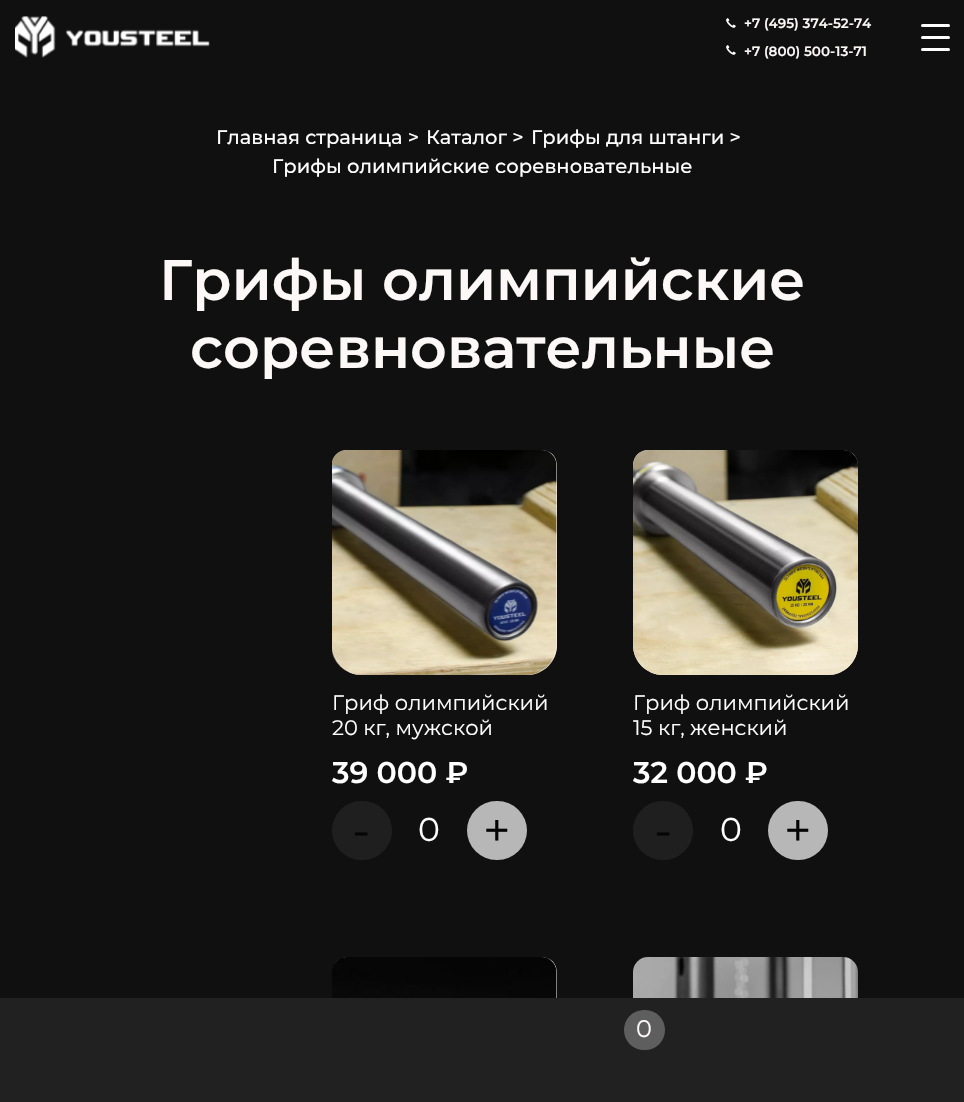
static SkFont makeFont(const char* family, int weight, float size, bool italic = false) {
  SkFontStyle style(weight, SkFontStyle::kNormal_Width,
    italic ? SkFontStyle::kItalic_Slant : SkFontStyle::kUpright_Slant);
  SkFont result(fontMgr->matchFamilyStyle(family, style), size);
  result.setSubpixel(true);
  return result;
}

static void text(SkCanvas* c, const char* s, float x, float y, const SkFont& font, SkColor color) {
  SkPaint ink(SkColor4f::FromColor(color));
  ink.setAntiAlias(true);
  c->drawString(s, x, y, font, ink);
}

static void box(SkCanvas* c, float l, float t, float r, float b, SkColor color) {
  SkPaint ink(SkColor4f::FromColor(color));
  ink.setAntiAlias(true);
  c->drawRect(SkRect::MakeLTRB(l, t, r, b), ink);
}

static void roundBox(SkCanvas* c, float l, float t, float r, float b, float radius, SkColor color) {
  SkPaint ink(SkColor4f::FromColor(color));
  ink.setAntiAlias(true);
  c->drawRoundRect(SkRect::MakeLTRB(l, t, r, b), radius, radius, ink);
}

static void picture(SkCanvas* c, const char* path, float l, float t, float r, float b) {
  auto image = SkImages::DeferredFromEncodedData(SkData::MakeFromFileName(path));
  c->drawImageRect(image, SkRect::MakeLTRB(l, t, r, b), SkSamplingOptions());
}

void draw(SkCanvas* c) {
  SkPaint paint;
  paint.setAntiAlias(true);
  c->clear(0xff111010);
  picture(c, "img_01.png", 15, 16, 210, 58);
  picture(c, "img_02.png", 726, 18, 736, 28);
  SkFont face1 = makeFont("Montserrat", 600, 13.5f);
  text(c, "+7 (495) 374-52-74", 744, 28, face1, 0xfffcf8f8);
  picture(c, "img_02.png", 726, 45, 736, 55);
  text(c, "+7 (800) 500-13-71", 744, 56, face1, 0xfffcf8f8);
  roundBox(c, 921, 36, 950, 39, 1.5f, 0xffffffff);
  roundBox(c, 921, 24, 950, 27, 1.5f, 0xffffffff);
  roundBox(c, 921, 48, 950, 51, 1.5f, 0xffffffff);
  SkFont face2 = makeFont("Montserrat", 500, 19.5f);
  text(c, "Главная страница >", 216, 144, face2, 0xffffffff);
  text(c, "Каталог >", 426, 144, face2, 0xffffffff);
  text(c, "Грифы для штанги >", 531, 144, face2, 0xffffffff);
  text(c, "Грифы олимпийские соревновательные", 272, 173, face2, 0xffffffff);
  SkFont face3 = makeFont("Montserrat", 600, 57);
  text(c, "Грифы олимпийские", 159, 300, face3, 0xfffcf8f8);
  text(c, "соревновательные", 190, 368, face3, 0xfffcf8f8);
  c->save();
  c->clipPath(SkPathBuilder().moveTo(347, 450).lineTo(542, 450).cubicTo(550.5f, 450, 557, 456.5f, 557, 465).lineTo(557, 660).cubicTo(557, 668.5f, 550.5f, 675, 542, 675).lineTo(347, 675).cubicTo(338.5f, 675, 332, 668.5f, 332, 660).lineTo(332, 465).cubicTo(332, 456.5f, 338.5f, 450, 347, 450).close().detach(), true);
  paint.setColor(0xffffffff);
  c->drawPath(SkPathBuilder().moveTo(347, 450).lineTo(542, 450).cubicTo(550.5f, 450, 557, 456.5f, 557, 465).lineTo(557, 645).cubicTo(557, 661.5f, 543.5f, 675, 527, 675).lineTo(362, 675).cubicTo(345.5f, 675, 332, 661.5f, 332, 645).lineTo(332, 465).cubicTo(332, 456.5f, 338.5f, 450, 347, 450).close().detach(), paint);
  c->restore();
  picture(c, "img_03.png", 332, 450, 557, 675);
  SkFont face4 = makeFont("Montserrat", 400, 21);
  text(c, "Гриф олимпийский", 332, 710, face4, 0xffffffff);
  text(c, "20 кг, мужской", 332, 735, face4, 0xffffffff);
  SkFont face5 = makeFont("Montserrat", 600, 30);
  text(c, "39 000 ₽", 332, 783, face5, 0xffffffff);
  roundBox(c, 332, 801, 392, 860, 29.5f, 0xff1f1f1f);
  SkFont face6 = makeFont("Montserrat", 400, 48);
  text(c, "-", 352, 847, face6, 0xff050505);
  SkFont face7 = makeFont("Montserrat", 400, 33);
  text(c, "0", 418, 841, face7, 0xffffffff);
  roundBox(c, 467, 801, 527, 860, 29.5f, 0xffb8b7b7);
  text(c, "+", 483, 847, face6, 0xff050505);
  c->save();
  c->clipPath(SkPathBuilder().moveTo(648, 450).lineTo(843, 450).cubicTo(851.5f, 450, 858, 456.5f, 858, 465).lineTo(858, 660).cubicTo(858, 668.5f, 851.5f, 675, 843, 675).lineTo(648, 675).cubicTo(639.5f, 675, 633, 668.5f, 633, 660).lineTo(633, 465).cubicTo(633, 456.5f, 639.5f, 450, 648, 450).close().detach(), true);
  c->drawPath(SkPathBuilder().moveTo(648, 450).lineTo(843, 450).cubicTo(851.5f, 450, 858, 456.5f, 858, 465).lineTo(858, 645).cubicTo(858, 661.5f, 844.5f, 675, 828, 675).lineTo(663, 675).cubicTo(646.5f, 675, 633, 661.5f, 633, 645).lineTo(633, 465).cubicTo(633, 456.5f, 639.5f, 450, 648, 450).close().detach(), paint);
  c->restore();
  picture(c, "img_04.png", 633, 450, 858, 675);
  text(c, "Гриф олимпийский", 633, 710, face4, 0xffffffff);
  text(c, "15 кг, женский", 633, 735, face4, 0xffffffff);
  text(c, "32 000 ₽", 633, 783, face5, 0xffffffff);
  roundBox(c, 633, 801, 693, 860, 29.5f, 0xff1f1f1f);
  text(c, "-", 654, 847, face6, 0xff050505);
  text(c, "0", 720, 841, face7, 0xffffffff);
  roundBox(c, 768, 801, 828, 860, 29.5f, 0xffb8b7b7);
  text(c, "+", 784, 847, face6, 0xff050505);
  c->save();
  c->clipPath(SkPathBuilder().moveTo(347, 957).lineTo(542, 957).cubicTo(550.5f, 957, 557, 963.5f, 557, 972).lineTo(557, 1167).cubicTo(557, 1175.5f, 550.5f, 1182, 542, 1182).lineTo(347, 1182).cubicTo(338.5f, 1182, 332, 1175.5f, 332, 1167).lineTo(332, 972).cubicTo(332, 963.5f, 338.5f, 957, 347, 957).close().detach(), true);
  c->drawPath(SkPathBuilder().moveTo(347, 957).lineTo(542, 957).cubicTo(550.5f, 957, 557, 963.5f, 557, 972).lineTo(557, 1102).cubicTo(557, 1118.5f, 543.5f, 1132, 527, 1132).lineTo(362, 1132).cubicTo(345.5f, 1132, 332, 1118.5f, 332, 1102).lineTo(332, 972).cubicTo(332, 963.5f, 338.5f, 957, 347, 957).close().detach(), paint);
  c->restore();
  picture(c, "img_05.png", 332, 957, 557, 998);
  picture(c, "img_06.png", 633, 957, 858, 998);
  box(c, 0, 998, 964, 1102, 0xff212121);
  roundBox(c, 624, 1010, 665, 1050, 20, 0xff5e5e5e);
  SkFont face8 = makeFont("Montserrat", 400, 24);
  text(c, "0", 636, 1037, face8, 0xfffcf8f8);
}
